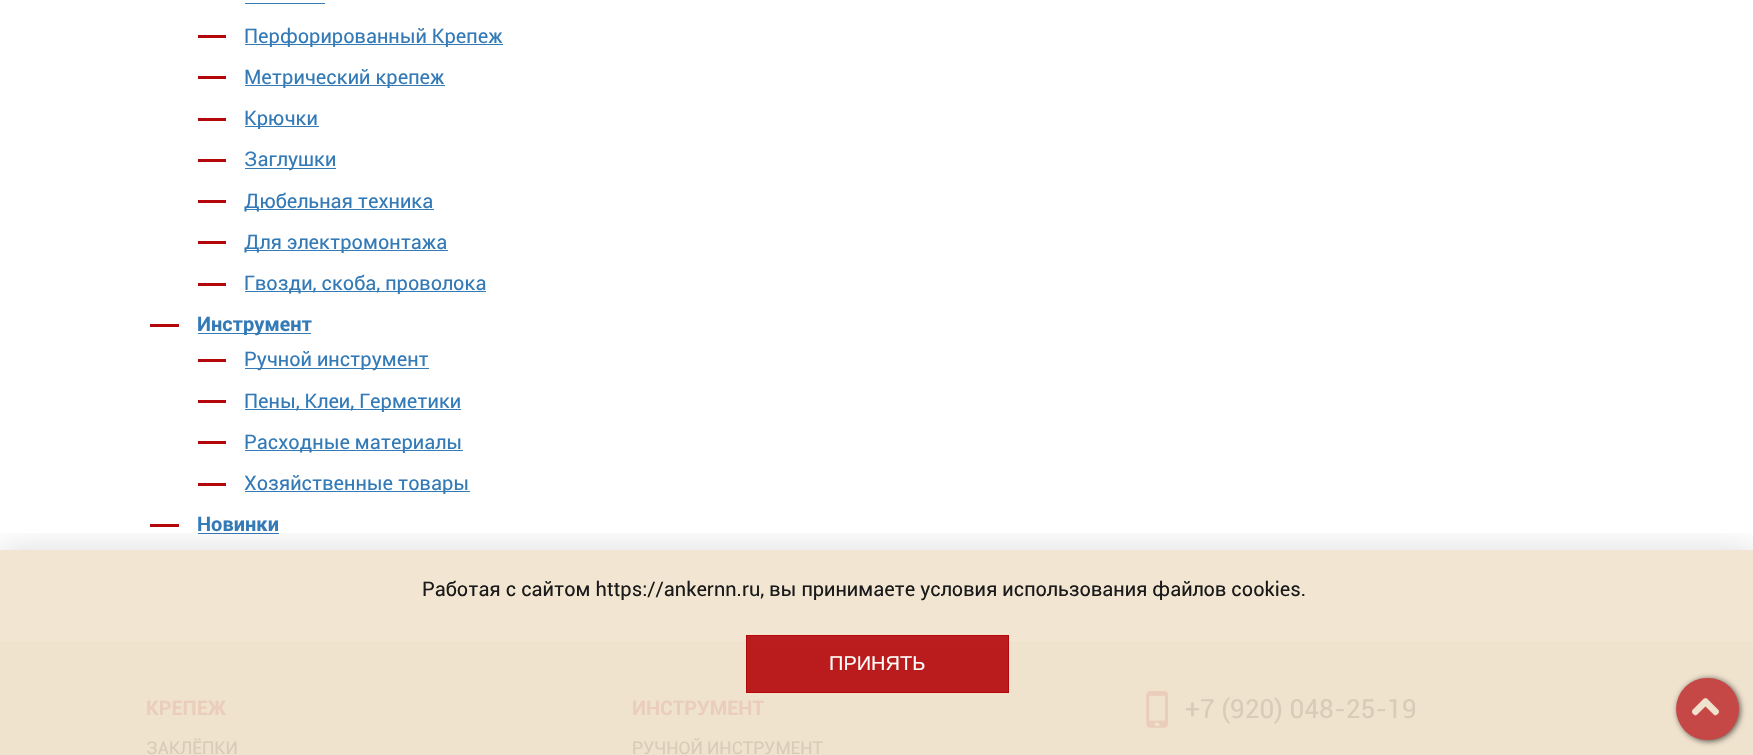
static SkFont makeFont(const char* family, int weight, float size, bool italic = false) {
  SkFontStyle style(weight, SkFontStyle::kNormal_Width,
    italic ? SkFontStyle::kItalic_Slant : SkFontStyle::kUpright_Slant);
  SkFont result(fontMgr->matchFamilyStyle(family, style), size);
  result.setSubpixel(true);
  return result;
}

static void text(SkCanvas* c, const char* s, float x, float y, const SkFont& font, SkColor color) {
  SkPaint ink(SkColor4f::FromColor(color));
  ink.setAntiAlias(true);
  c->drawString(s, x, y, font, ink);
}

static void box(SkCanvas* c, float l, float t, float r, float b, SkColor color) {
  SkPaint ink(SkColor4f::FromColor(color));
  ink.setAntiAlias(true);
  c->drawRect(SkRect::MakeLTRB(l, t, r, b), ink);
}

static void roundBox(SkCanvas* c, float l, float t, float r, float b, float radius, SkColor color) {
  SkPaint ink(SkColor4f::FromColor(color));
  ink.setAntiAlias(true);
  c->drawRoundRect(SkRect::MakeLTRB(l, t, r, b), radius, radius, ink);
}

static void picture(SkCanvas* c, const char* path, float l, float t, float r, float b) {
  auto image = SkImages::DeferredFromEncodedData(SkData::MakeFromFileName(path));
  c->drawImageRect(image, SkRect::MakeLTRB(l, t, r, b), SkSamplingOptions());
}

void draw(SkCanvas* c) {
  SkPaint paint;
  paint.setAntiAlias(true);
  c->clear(0xffffffff);
  box(c, 0, 550, 1753, 641, 0xfff2e6d3);
  box(c, 747, 636, 1008, 641, 0xffba1c1f);
  box(c, 245, 3, 325, 4, 0xff337ab7);
  box(c, 198, 35, 226, 38, 0xffb4060b);
  box(c, 245, 44, 503, 45, 0xff337ab7);
  SkFont face1 = makeFont("Roboto", 400, 20);
  text(c, "Перфорированный Крепеж", 244, 43, face1, 0xff337ab7);
  box(c, 198, 76, 226, 79, 0xffb4060b);
  box(c, 245, 85, 445, 86, 0xff337ab7);
  text(c, "Метрический крепеж", 244, 84, face1, 0xff337ab7);
  box(c, 198, 118, 226, 121, 0xffb4060b);
  box(c, 245, 126, 319, 127, 0xff337ab7);
  text(c, "Крючки", 244, 125, face1, 0xff337ab7);
  box(c, 198, 159, 226, 162, 0xffb4060b);
  box(c, 245, 168, 336, 169, 0xff337ab7);
  text(c, "Заглушки", 244, 166, face1, 0xff337ab7);
  box(c, 198, 200, 226, 203, 0xffb4060b);
  box(c, 245, 209, 434, 210, 0xff337ab7);
  text(c, "Дюбельная техника", 244, 208, face1, 0xff337ab7);
  box(c, 198, 241, 226, 244, 0xffb4060b);
  box(c, 245, 250, 448, 251, 0xff337ab7);
  text(c, "Для электромонтажа", 244, 249, face1, 0xff337ab7);
  box(c, 198, 283, 226, 286, 0xffb4060b);
  box(c, 245, 291, 486, 292, 0xff337ab7);
  text(c, "Гвозди, скоба, проволока", 244, 290, face1, 0xff337ab7);
  box(c, 150, 324, 179, 327, 0xffb4060b);
  box(c, 198, 333, 311, 334, 0xff337ab7);
  SkFont face2 = makeFont("Roboto", 700, 20);
  text(c, "Инструмент", 197, 331, face2, 0xff337ab7);
  box(c, 198, 359, 226, 362, 0xffb4060b);
  box(c, 245, 368, 429, 369, 0xff337ab7);
  text(c, "Ручной инструмент", 244, 366, face1, 0xff337ab7);
  box(c, 198, 400, 226, 403, 0xffb4060b);
  box(c, 245, 409, 461, 410, 0xff337ab7);
  text(c, "Пены, Клеи, Герметики", 244, 408, face1, 0xff337ab7);
  box(c, 198, 441, 226, 444, 0xffb4060b);
  box(c, 245, 450, 463, 451, 0xff337ab7);
  text(c, "Расходные материалы", 244, 449, face1, 0xff337ab7);
  box(c, 198, 483, 226, 486, 0xffb4060b);
  box(c, 245, 491, 470, 492, 0xff337ab7);
  text(c, "Хозяйственные товары", 244, 490, face1, 0xff337ab7);
  box(c, 150, 524, 179, 527, 0xffb4060b);
  text(c, "Новинки", 197, 531, face2, 0xff337ab7);
  box(c, 198, 533, 279, 534, 0xff337ab7);
  box(c, 0, 641, 1753, 755, 0xfff0e3ce);
  box(c, 747, 641, 1008, 692, 0xffba1c1e);
  text(c, "КРЕПЕЖ", 146, 715, face2, 0xffeacdbb);
  SkFont face3 = makeFont("Roboto", 400, 17.5f);
  text(c, "ЗАКЛЁПКИ", 146, 754, face3, 0xffd8ccb9);
  text(c, "ИНСТРУМЕНТ", 632, 715, face2, 0xffeacdbb);
  text(c, "РУЧНОЙ ИНСТРУМЕНТ", 632, 754, face3, 0xffd8ccb9);
  picture(c, "img_01.png", 1146, 691, 1168, 728);
  SkFont face4 = makeFont("Roboto", 400, 26.25f);
  text(c, "+7 (920) 048-25-19", 1185, 718, face4, 0xffd8ccb9);
  c->save();
  c->clipRect(SkRect::MakeLTRB(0, 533, 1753, 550));
  paint.setColor(0x24000000);
  paint.setMaskFilter(SkMaskFilter::MakeBlur(kNormal_SkBlurStyle, 15.5f));
  c->drawRect(SkRect::MakeLTRB(0, 550, 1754, 755), paint);
  paint.setMaskFilter(nullptr);
  c->restore();
  text(c, "Работая с сайтом https://ankernn.ru, вы принимаете условия использования файлов cookies.", 422, 596, face1, 0xff1a1a1a);
  paint.setStyle(SkPaint::kStroke_Style);
  paint.setStrokeWidth(1);
  paint.setColor(0xffb5080d);
  c->drawRect(SkRect::MakeLTRB(746.5f, 635.5f, 1008.5f, 692.5f), paint);
  SkFont face5 = makeFont("Liberation Sans", 400, 20);
  text(c, "ПРИНЯТЬ", 829, 670, face5, 0xfffefcfa);
  paint.setStyle(SkPaint::kFill_Style);
  paint.setColor(0xff48443e);
  paint.setMaskFilter(SkMaskFilter::MakeBlur(kNormal_SkBlurStyle, 3));
  c->drawRoundRect(SkRect::MakeLTRB(1678, 679, 1740, 741), 31, 31, paint);
  paint.setMaskFilter(nullptr);
  roundBox(c, 1676, 678, 1739, 740, 31, 0xffc64846);
  SkFont face6 = makeFont("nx", 400, 31);
  text(c, "˄", 1692, 717, face6, 0xfff0e3ce);
}
